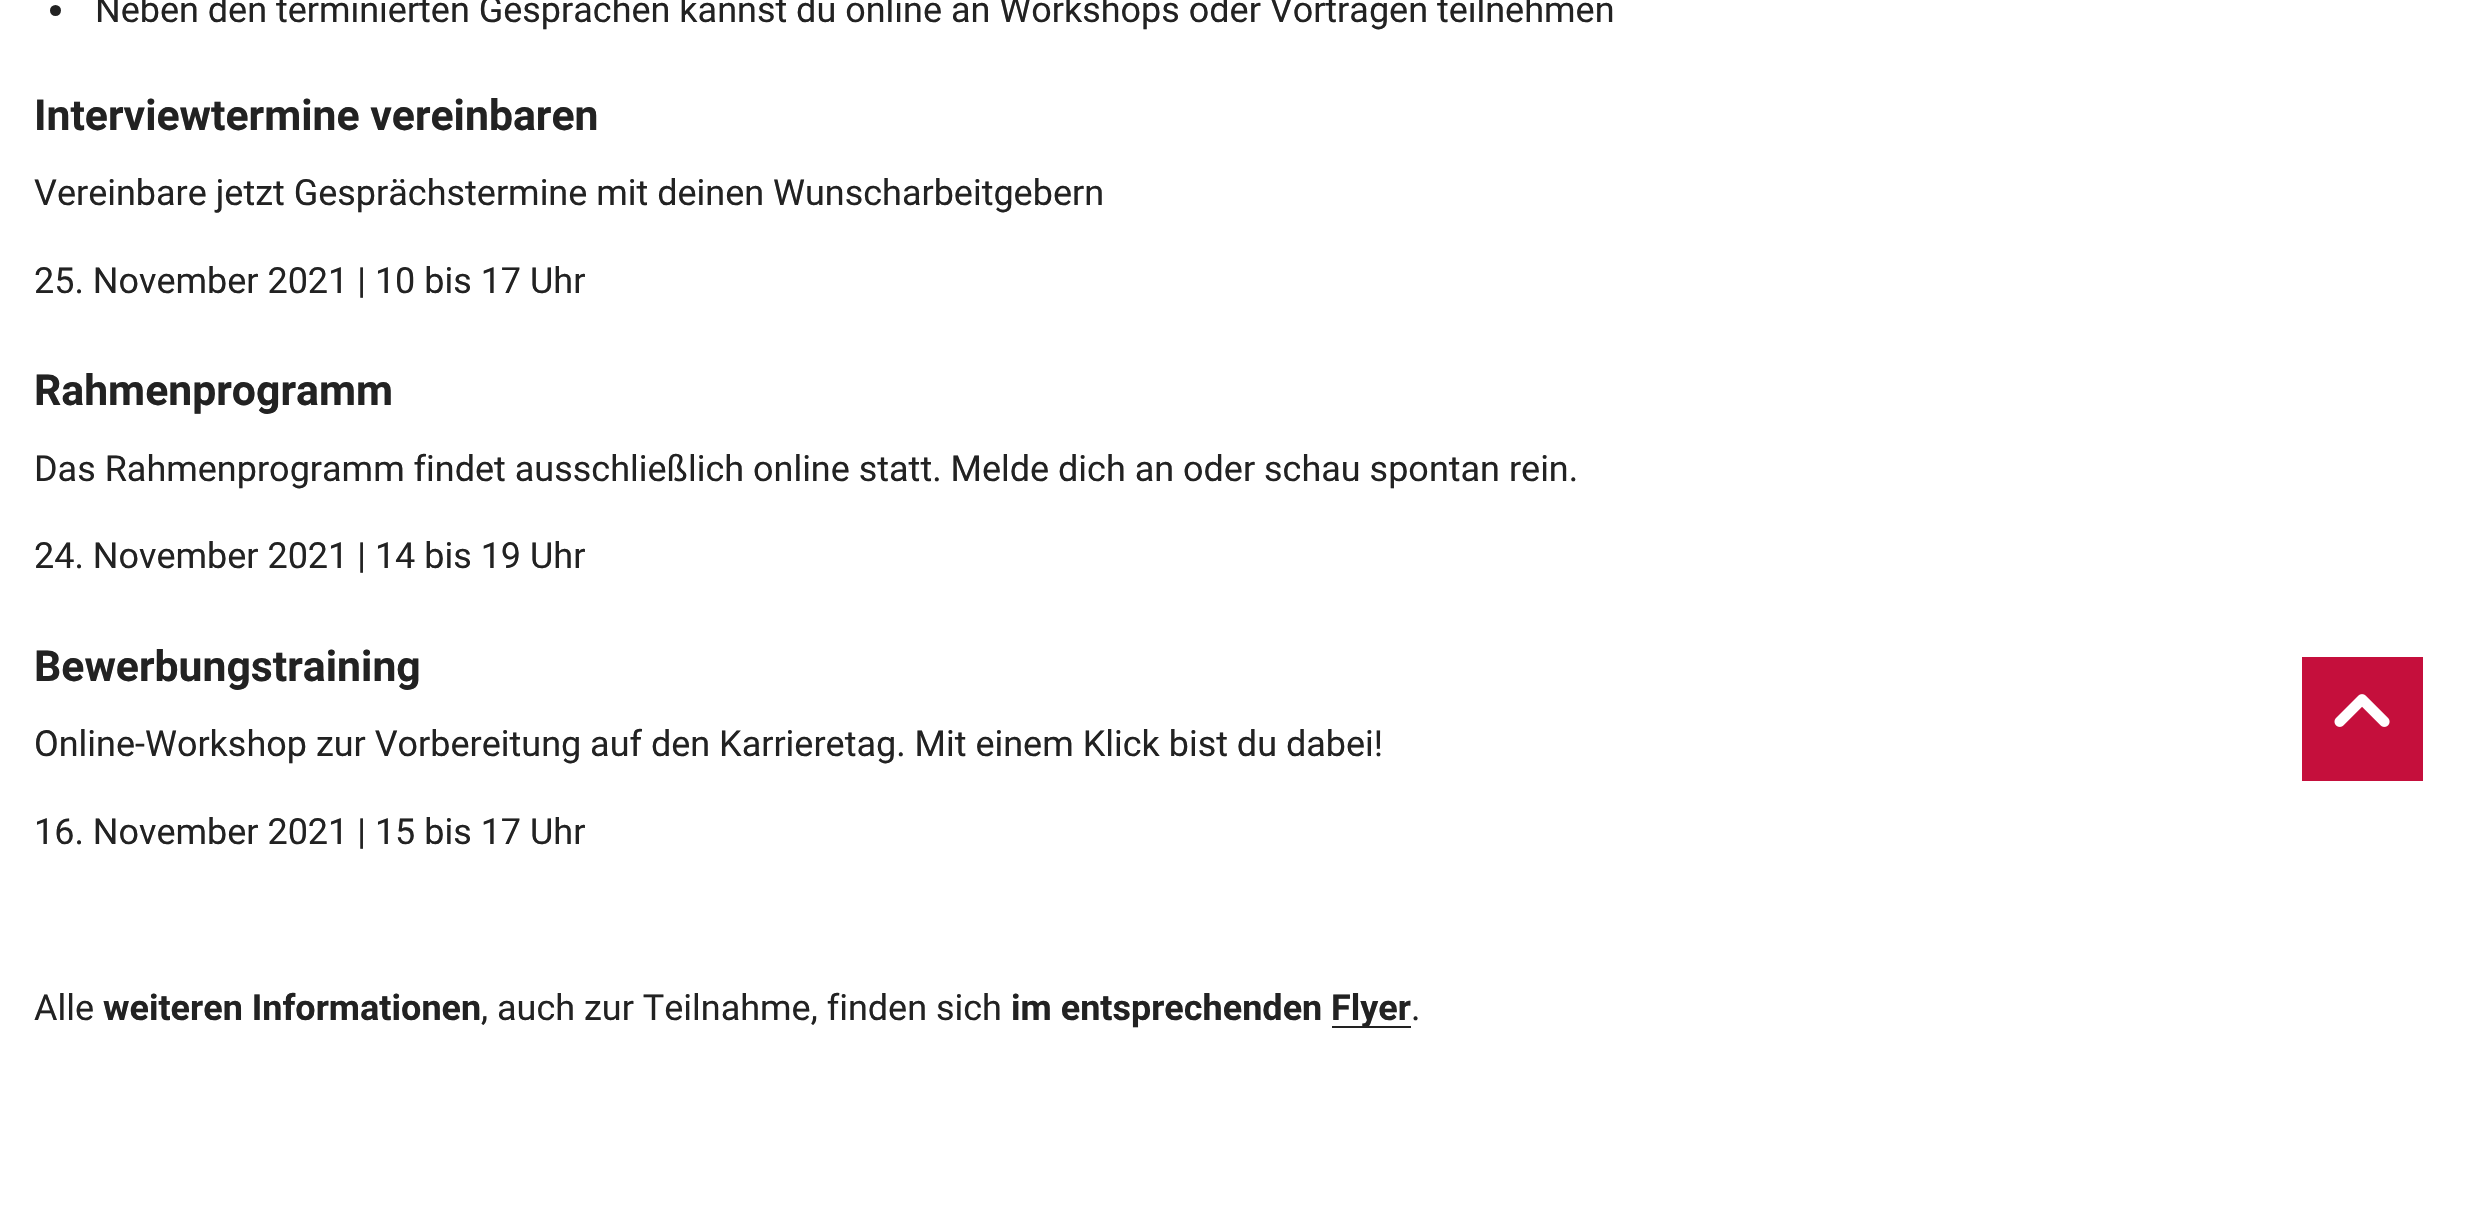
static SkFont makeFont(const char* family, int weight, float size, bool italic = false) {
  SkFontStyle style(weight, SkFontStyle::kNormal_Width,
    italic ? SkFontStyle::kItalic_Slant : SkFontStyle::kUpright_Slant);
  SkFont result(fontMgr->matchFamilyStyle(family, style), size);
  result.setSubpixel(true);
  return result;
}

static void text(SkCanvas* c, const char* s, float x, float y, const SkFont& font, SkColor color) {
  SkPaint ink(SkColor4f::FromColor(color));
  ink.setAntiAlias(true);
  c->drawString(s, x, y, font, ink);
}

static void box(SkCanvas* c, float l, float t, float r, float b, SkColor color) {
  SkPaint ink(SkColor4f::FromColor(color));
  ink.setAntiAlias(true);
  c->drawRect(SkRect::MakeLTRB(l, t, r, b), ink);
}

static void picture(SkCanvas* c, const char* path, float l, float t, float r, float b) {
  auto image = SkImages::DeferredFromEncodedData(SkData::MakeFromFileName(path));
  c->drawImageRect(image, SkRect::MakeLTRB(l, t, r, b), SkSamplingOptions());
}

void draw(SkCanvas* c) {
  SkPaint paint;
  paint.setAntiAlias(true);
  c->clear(0xffffffff);
  paint.setColor(0xff222222);
  c->drawCircle(55.5f, 10.5f, 5.5f, paint);
  SkFont face1 = makeFont("Roboto", 400, 36);
  text(c, "Neben den terminierten Gesprächen kannst du online an Workshops oder Vorträgen teilnehmen", 95, 22, face1, 0xff222222);
  SkFont face2 = makeFont("Roboto", 700, 42.75f);
  text(c, "Interviewtermine vereinbaren", 34, 130, face2, 0xff222222);
  text(c, "Vereinbare jetzt Gesprächstermine mit deinen Wunscharbeitgebern", 34, 205, face1, 0xff222222);
  text(c, "25. November 2021 | 10 bis 17 Uhr", 34, 293, face1, 0xff222222);
  text(c, "Rahmenprogramm", 34, 405, face2, 0xff222222);
  text(c, "Das Rahmenprogramm findet ausschließlich online statt. Melde dich an oder schau spontan rein.", 34, 481, face1, 0xff222222);
  text(c, "24. November 2021 | 14 bis 19 Uhr", 34, 568, face1, 0xff222222);
  text(c, "Bewerbungstraining", 34, 681, face2, 0xff222222);
  text(c, "Online-Workshop zur Vorbereitung auf den Karrieretag. Mit einem Klick bist du dabei!", 34, 756, face1, 0xff222222);
  text(c, "16. November 2021 | 15 bis 17 Uhr", 34, 844, face1, 0xff222222);
  text(c, "Alle", 34, 1020, face1, 0xff222222);
  SkFont face3 = makeFont("Roboto", 700, 36);
  text(c, "weiteren Informationen", 103, 1020, face3, 0xff222222);
  text(c, ", auch zur Teilnahme, finden sich", 481, 1020, face1, 0xff222222);
  text(c, "im entsprechenden", 1011, 1020, face3, 0xff222222);
  box(c, 1332, 1026, 1411, 1028, 0xff222222);
  text(c, "Flyer", 1331, 1020, face3, 0xff222222);
  text(c, ".", 1411, 1020, face1, 0xff222222);
  box(c, 2302, 657, 2423, 781, 0xffc50f3c);
  picture(c, "img_01.png", 2334, 694, 2390, 727);
}
